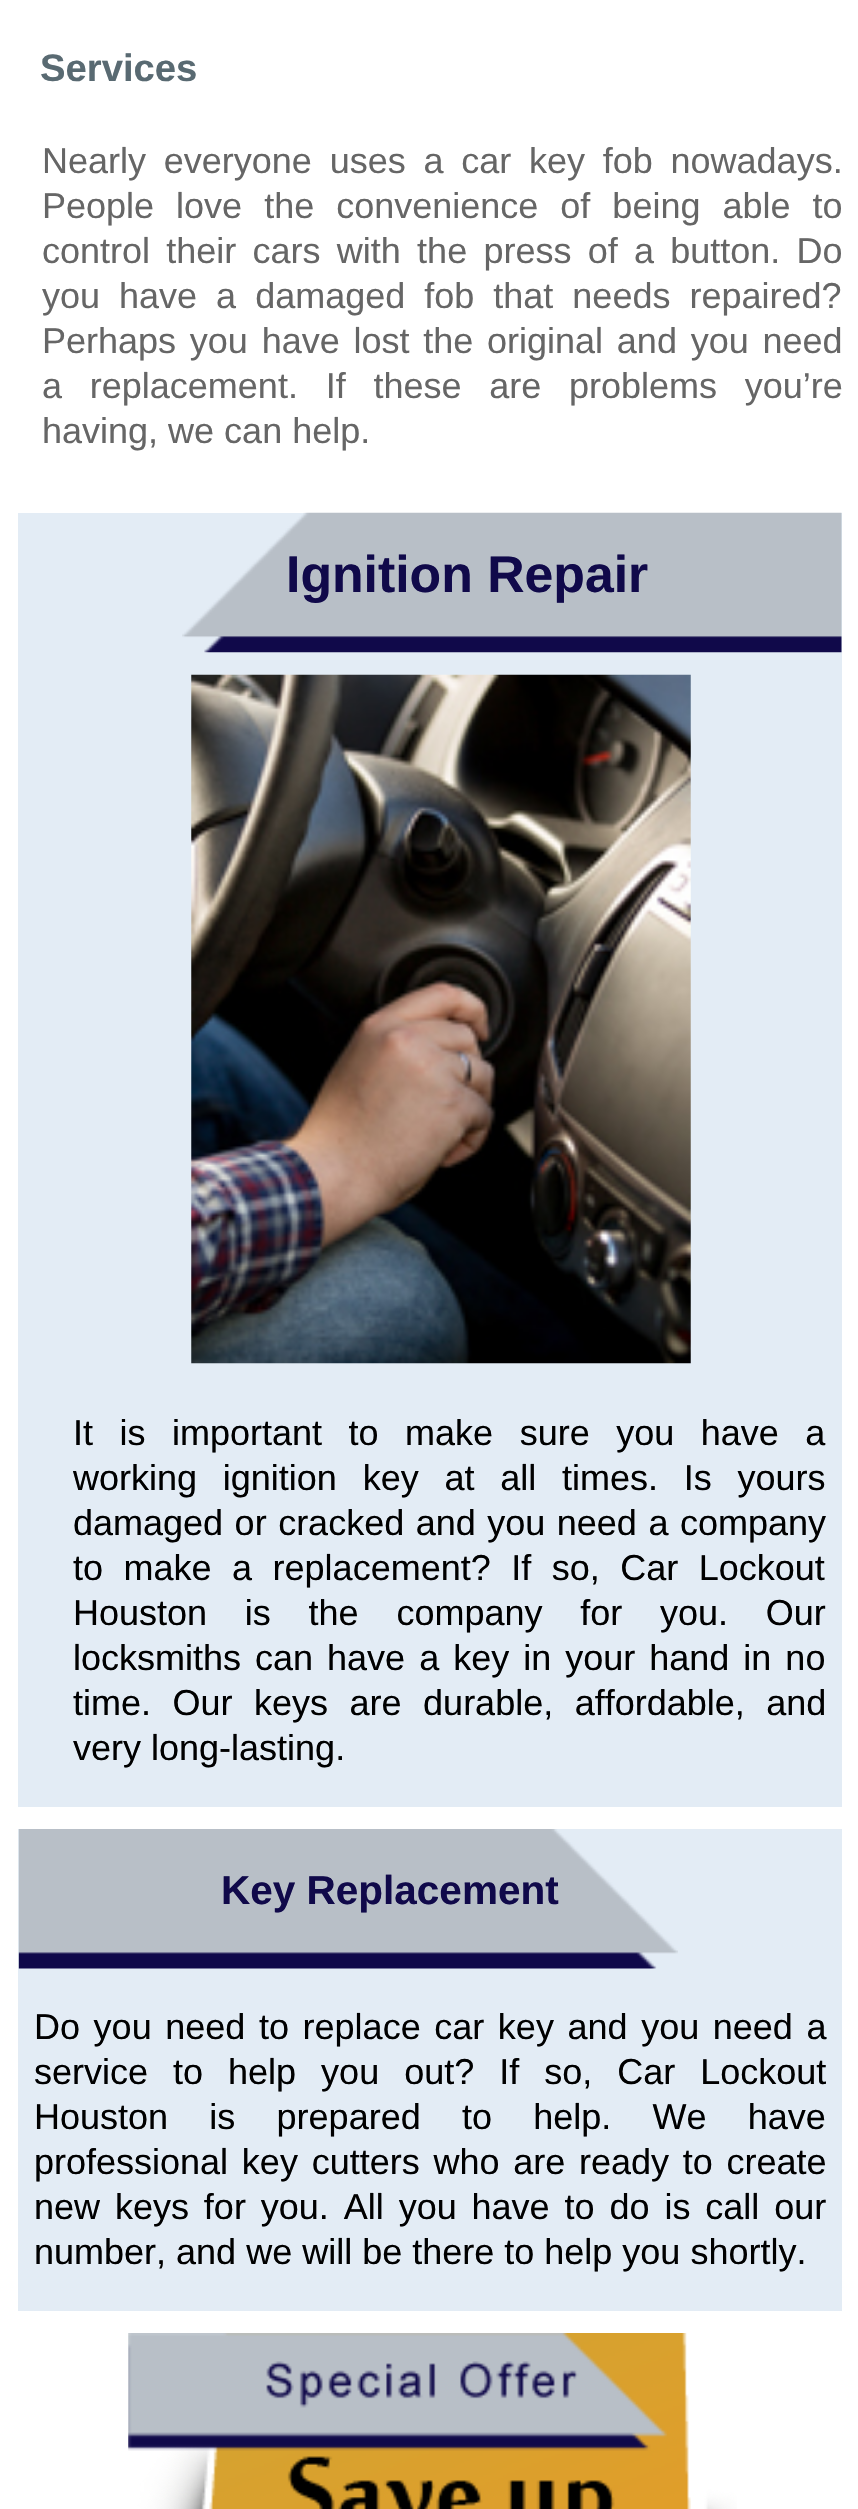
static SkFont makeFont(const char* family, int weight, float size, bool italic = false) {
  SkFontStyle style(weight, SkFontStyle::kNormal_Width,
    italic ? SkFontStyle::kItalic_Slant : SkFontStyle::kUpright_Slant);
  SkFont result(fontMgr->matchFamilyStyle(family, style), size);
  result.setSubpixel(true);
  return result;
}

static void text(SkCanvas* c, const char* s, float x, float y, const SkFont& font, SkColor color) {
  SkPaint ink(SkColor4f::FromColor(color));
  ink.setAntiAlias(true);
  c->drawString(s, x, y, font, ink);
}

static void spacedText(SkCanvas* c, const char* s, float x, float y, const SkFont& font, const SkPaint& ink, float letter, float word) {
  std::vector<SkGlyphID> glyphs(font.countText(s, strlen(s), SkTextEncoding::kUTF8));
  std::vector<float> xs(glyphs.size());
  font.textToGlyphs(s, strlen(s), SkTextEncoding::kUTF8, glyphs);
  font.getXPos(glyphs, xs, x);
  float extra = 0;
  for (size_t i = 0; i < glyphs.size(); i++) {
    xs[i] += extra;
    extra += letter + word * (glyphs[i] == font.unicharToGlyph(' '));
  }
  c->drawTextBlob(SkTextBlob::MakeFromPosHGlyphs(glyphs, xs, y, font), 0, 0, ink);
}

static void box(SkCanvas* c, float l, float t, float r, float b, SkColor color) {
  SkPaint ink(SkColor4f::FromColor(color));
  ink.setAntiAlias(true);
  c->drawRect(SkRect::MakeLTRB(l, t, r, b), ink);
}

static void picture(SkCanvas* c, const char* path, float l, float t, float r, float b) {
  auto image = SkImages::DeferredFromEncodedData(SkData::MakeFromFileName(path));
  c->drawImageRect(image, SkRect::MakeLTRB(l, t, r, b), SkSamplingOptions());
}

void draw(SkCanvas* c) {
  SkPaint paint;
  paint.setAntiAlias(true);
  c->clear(0xffffffff);
  SkFont face1 = makeFont("Liberation Sans", 700, 38.25f);
  text(c, "Services", 40, 81, face1, 0xff596a72);
  SkFont face2 = makeFont("Liberation Sans", 400, 36);
  paint.setColor(0xff666666);
  spacedText(c, "Nearly everyone uses a car key fob nowadays.", 42, 173, face2, paint, 0, 7.75f);
  spacedText(c, "People love the convenience of being able to", 42, 218, face2, paint, 0, 12);
  spacedText(c, "control their cars with the press of a button. Do", 42, 263, face2, paint, 0, 6.25f);
  spacedText(c, "you have a damaged fob that needs repaired?", 42, 308, face2, paint, 0, 9);
  spacedText(c, "Perhaps you have lost the original and you need", 42, 353, face2, paint, 0, 3.75f);
  spacedText(c, "a replacement. If these are problems you’re", 42, 398, face2, paint, 0, 17.75f);
  text(c, "having, we can help.", 42, 443, face2, 0xff666666);
  box(c, 18, 513, 842, 1807, 0xffe3ecf5);
  picture(c, "img_01.png", 182, 512, 842, 653);
  SkFont face3 = makeFont("Liberation Sans", 700, 51.75f);
  text(c, "Ignition Repair", 286, 592, face3, 0xff10094a);
  picture(c, "img_02.png", 191, 674, 691, 1364);
  paint.setColor(0xff000000);
  spacedText(c, "It is important to make sure you have a", 73, 1445, face2, paint, 0, 16.5f);
  spacedText(c, "working ignition key at all times. Is yours", 73, 1490, face2, paint, 0, 15.75f);
  spacedText(c, "damaged or cracked and you need a company", 73, 1535, face2, paint, 0, 1.5f);
  spacedText(c, "to make a replacement? If so, Car Lockout", 73, 1580, face2, paint, 0, 10.5f);
  spacedText(c, "Houston is the company for you. Our", 73, 1625, face2, paint, 0, 27.75f);
  spacedText(c, "locksmiths can have a key in your hand in no", 73, 1670, face2, paint, 0, 4);
  spacedText(c, "time. Our keys are durable, affordable, and", 73, 1715, face2, paint, 0, 11.5f);
  text(c, "very long-lasting.", 73, 1760, face2, 0xff000000);
  box(c, 18, 1829, 842, 2311, 0xffe3ecf5);
  picture(c, "img_03.png", 18, 1829, 678, 1969);
  SkFont face4 = makeFont("Liberation Sans", 700, 40.5f);
  text(c, "Key Replacement", 221, 1904, face4, 0xff10094a);
  spacedText(c, "Do you need to replace car key and you need a", 34, 2039, face2, paint, 0, 3.6f);
  spacedText(c, "service to help you out? If so, Car Lockout", 34, 2084, face2, paint, 0, 15);
  spacedText(c, "Houston is prepared to help. We have", 34, 2129, face2, paint, 0, 31.25f);
  spacedText(c, "professional key cutters who are ready to create", 34, 2174, face2, paint, 0, 3.75f);
  spacedText(c, "new keys for you. All you have to do is call our", 34, 2219, face2, paint, 0, 4.9f);
  text(c, "number, and we will be there to help you shortly.", 34, 2264, face2, 0xff000000);
  picture(c, "img_04.png", 128, 2333, 737, 2509);
}
